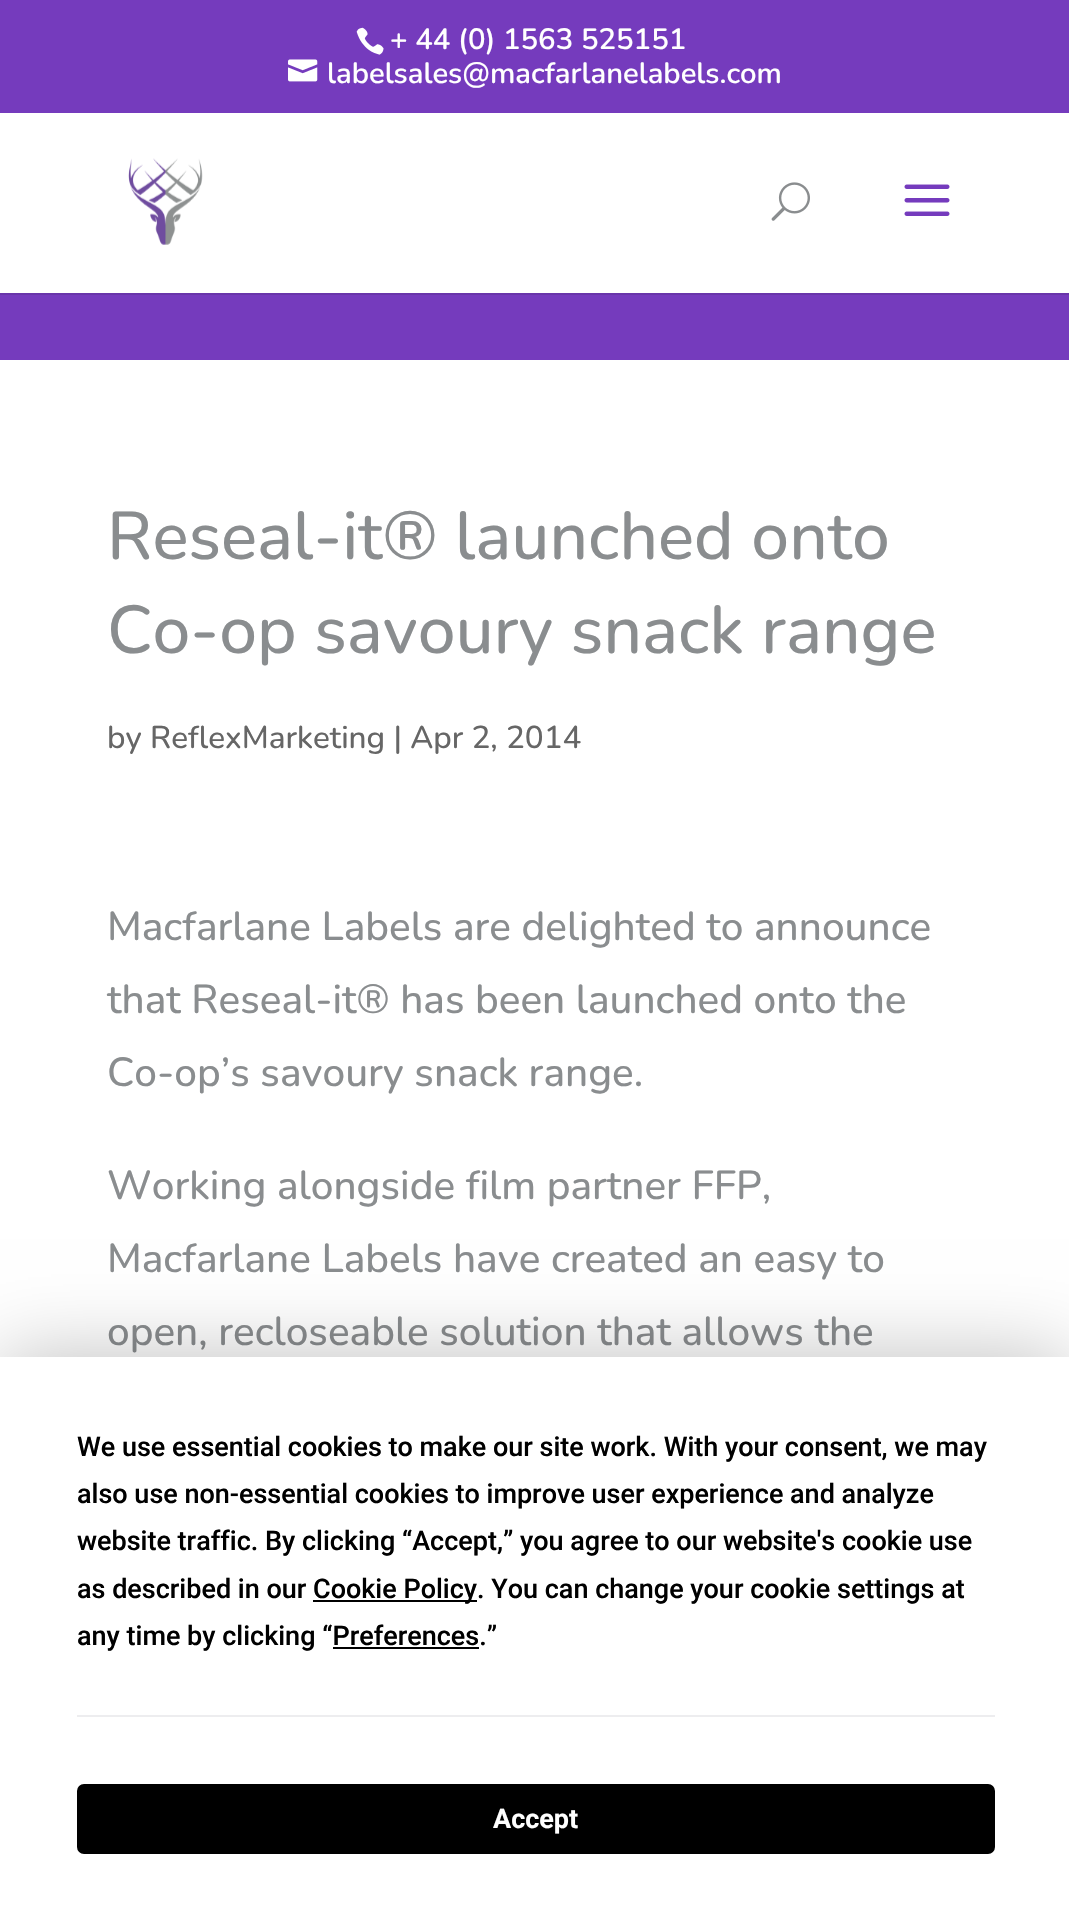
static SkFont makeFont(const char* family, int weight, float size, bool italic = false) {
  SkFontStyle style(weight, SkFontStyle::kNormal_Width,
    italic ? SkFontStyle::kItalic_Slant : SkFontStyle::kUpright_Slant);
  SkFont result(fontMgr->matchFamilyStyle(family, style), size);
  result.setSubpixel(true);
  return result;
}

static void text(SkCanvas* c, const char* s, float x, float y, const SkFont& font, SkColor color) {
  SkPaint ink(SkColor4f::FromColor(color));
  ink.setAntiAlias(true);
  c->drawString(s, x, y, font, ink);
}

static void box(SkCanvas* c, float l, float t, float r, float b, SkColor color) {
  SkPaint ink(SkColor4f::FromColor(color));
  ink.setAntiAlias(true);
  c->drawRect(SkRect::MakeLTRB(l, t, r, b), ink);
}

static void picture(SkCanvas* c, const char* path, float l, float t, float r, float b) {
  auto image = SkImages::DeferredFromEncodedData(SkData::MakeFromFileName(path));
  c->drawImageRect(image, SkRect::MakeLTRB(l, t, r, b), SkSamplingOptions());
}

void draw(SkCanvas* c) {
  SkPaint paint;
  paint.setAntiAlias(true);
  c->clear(0xff753bbd);
  picture(c, "img_01.png", 356, 27, 384, 55);
  SkFont face1 = makeFont("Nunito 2", 200, 29.25f);
  text(c, "+ 44 (0) 1563 525151", 390, 49, face1, 0xffffffff);
  picture(c, "img_02.png", 288, 59, 318, 82);
  text(c, "labelsales@macfarlanelabels.com", 327, 83, face1, 0xffffffff);
  box(c, 0, 293, 1069, 295, 0xff6935aa);
  box(c, 0, 113, 1069, 293, 0xffffffff);
  picture(c, "img_03.png", 128, 158, 203, 245);
  picture(c, "img_04.png", 771, 182, 810, 221);
  picture(c, "img_05.png", 904, 184, 950, 216);
  box(c, 0, 360, 1069, 1357, 0xffffffff);
  SkFont face2 = makeFont("Nunito", 200, 67.5f);
  text(c, "Reseal-it® launched onto", 107, 559, face2, 0xff8a8d8f);
  text(c, "Co-op savoury snack range", 107, 653, face2, 0xff8a8d8f);
  SkFont face3 = makeFont("Nunito", 200, 31.5f);
  text(c, "by ReflexMarketing | Apr 2, 2014", 107, 748, face3, 0xff666666);
  SkFont face4 = makeFont("Nunito", 200, 40.5f);
  text(c, "Macfarlane Labels are delighted to announce", 107, 940, face4, 0xff8a8d8f);
  text(c, "that Reseal-it® has been launched onto the", 107, 1013, face4, 0xff8a8d8f);
  text(c, "Co-op’s savoury snack range.", 107, 1086, face4, 0xff8a8d8f);
  text(c, "Working alongside film partner FFP,", 107, 1199, face4, 0xff8a8d8f);
  text(c, "Macfarlane Labels have created an easy to", 107, 1272, face4, 0xff8a8d8f);
  text(c, "open, recloseable solution that allows the", 107, 1345, face4, 0xff8a8d8f);
  paint.setColor(0x40000000);
  paint.setMaskFilter(SkMaskFilter::MakeBlur(kNormal_SkBlurStyle, 39.5f));
  c->drawRect(SkRect::MakeLTRB(0, 1357, 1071, 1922), paint);
  paint.setMaskFilter(nullptr);
  box(c, 0, 1357, 1069, 1921, 0xffffffff);
  SkFont face5 = makeFont("Roboto", 500, 27);
  text(c, "We use essential cookies to make our site work. With your consent, we may", 77, 1456, face5, 0xff000000);
  text(c, "also use non-essential cookies to improve user experience and analyze", 77, 1503, face5, 0xff000000);
  text(c, "website traffic. By clicking “Accept,” you agree to our website's cookie use", 77, 1550, face5, 0xff000000);
  text(c, "as described in our", 77, 1598, face5, 0xff000000);
  box(c, 313, 1600, 477, 1602, 0xff000000);
  text(c, "Cookie Policy. You can change your cookie settings at", 313, 1598, face5, 0xff000000);
  text(c, "any time by clicking “Preferences.”", 77, 1645, face5, 0xff000000);
  box(c, 333, 1647, 479, 1649, 0xff000000);
  box(c, 77, 1715, 995, 1717, 0xffededef);
  paint.setColor(0xff000000);
  c->drawRoundRect(SkRect::MakeLTRB(78, 1785, 994, 1853), 6, 6, paint);
  paint.setStyle(SkPaint::kStroke_Style);
  paint.setStrokeWidth(2);
  c->drawRoundRect(SkRect::MakeLTRB(78, 1785, 994, 1853), 6, 6, paint);
  SkFont face6 = makeFont("Roboto", 700, 27);
  text(c, "Accept", 493, 1828, face6, 0xffffffff);
}
